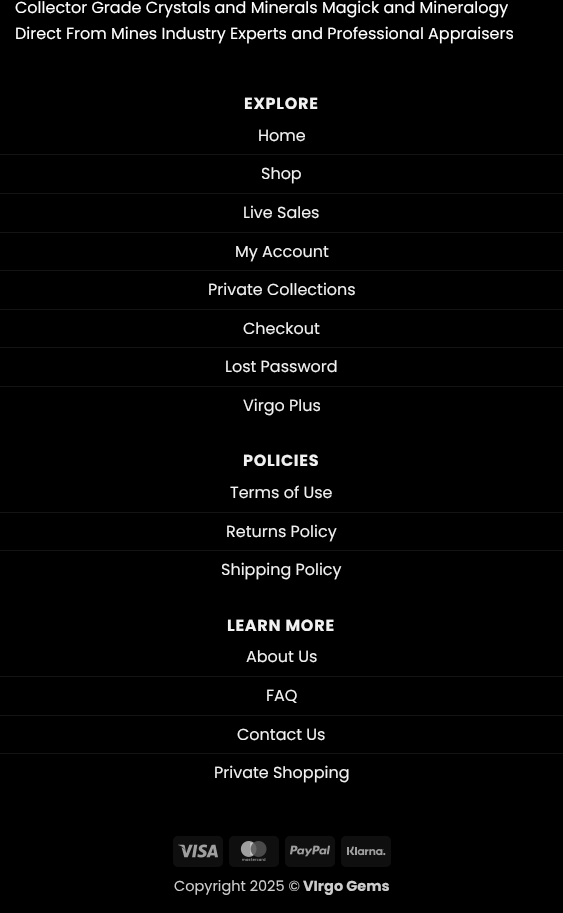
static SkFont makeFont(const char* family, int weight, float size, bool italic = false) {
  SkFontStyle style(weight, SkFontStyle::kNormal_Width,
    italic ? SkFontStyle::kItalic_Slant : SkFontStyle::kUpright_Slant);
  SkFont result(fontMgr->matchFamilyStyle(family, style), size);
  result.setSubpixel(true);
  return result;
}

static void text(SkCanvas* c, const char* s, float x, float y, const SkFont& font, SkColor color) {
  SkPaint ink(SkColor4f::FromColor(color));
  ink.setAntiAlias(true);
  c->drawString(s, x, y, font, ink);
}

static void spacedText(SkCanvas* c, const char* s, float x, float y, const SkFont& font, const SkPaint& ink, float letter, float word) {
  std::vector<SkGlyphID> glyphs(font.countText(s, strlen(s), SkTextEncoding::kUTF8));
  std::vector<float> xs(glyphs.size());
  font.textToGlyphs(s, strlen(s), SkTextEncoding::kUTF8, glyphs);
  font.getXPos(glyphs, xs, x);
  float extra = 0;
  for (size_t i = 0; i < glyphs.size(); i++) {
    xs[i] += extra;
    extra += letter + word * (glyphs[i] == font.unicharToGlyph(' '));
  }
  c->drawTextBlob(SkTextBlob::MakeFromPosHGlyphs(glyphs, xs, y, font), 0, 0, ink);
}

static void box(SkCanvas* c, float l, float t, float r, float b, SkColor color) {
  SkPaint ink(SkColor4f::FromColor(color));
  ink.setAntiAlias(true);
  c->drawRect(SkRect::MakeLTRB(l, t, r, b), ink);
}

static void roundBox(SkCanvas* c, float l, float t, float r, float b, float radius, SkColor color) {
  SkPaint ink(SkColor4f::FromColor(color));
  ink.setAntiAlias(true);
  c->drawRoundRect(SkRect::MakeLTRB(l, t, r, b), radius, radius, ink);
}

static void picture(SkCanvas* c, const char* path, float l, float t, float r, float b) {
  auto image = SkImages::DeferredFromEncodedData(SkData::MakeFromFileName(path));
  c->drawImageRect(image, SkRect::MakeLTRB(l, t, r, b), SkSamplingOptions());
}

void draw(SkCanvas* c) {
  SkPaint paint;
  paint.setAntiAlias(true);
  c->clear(0xff000000);
  SkFont face1 = makeFont("Poppins", 400, 16);
  text(c, "Collector Grade Crystals and Minerals Magick and Mineralogy", 15, 13, face1, 0xffffffff);
  text(c, "Direct From Mines Industry Experts and Professional Appraisers", 15, 39, face1, 0xffffffff);
  SkFont face2 = makeFont("Poppins", 700, 16);
  paint.setColor(0xfff1f1f1);
  spacedText(c, "EXPLORE", 244, 109, face2, paint, 0.75f, 0);
  text(c, "Home", 258, 141, face1, 0xfff1f1f1);
  box(c, 0, 154, 563, 155, 0xff141414);
  text(c, "Shop", 261, 179, face1, 0xfff1f1f1);
  box(c, 0, 193, 563, 194, 0xff141414);
  text(c, "Live Sales", 243, 218, face1, 0xfff1f1f1);
  box(c, 0, 232, 563, 233, 0xff141414);
  text(c, "My Account", 235, 257, face1, 0xfff1f1f1);
  box(c, 0, 270, 563, 271, 0xff141414);
  text(c, "Private Collections", 208, 295, face1, 0xfff1f1f1);
  box(c, 0, 309, 563, 310, 0xff141414);
  text(c, "Checkout", 243, 334, face1, 0xfff1f1f1);
  box(c, 0, 347, 563, 348, 0xff141414);
  text(c, "Lost Password", 225, 372, face1, 0xfff1f1f1);
  box(c, 0, 386, 563, 387, 0xff141414);
  text(c, "Virgo Plus", 243, 411, face1, 0xfff1f1f1);
  spacedText(c, "POLICIES", 243, 466, face2, paint, 0.75f, 0);
  text(c, "Terms of Use", 230, 498, face1, 0xfff1f1f1);
  box(c, 0, 512, 563, 513, 0xff141414);
  text(c, "Returns Policy", 226, 537, face1, 0xfff1f1f1);
  box(c, 0, 550, 563, 551, 0xff141414);
  text(c, "Shipping Policy", 221, 575, face1, 0xfff1f1f1);
  spacedText(c, "LEARN MORE", 227, 631, face2, paint, 0.75f, 0);
  text(c, "About Us", 246, 662, face1, 0xfff1f1f1);
  box(c, 0, 676, 563, 677, 0xff141414);
  text(c, "FAQ", 266, 701, face1, 0xfff1f1f1);
  box(c, 0, 715, 563, 716, 0xff141414);
  text(c, "Contact Us", 237, 740, face1, 0xfff1f1f1);
  box(c, 0, 753, 563, 754, 0xff141414);
  text(c, "Private Shopping", 214, 778, face1, 0xfff1f1f1);
  roundBox(c, 173, 836, 223, 867, 5, 0xff0f0f0f);
  picture(c, "img_01.png", 178, 844, 218, 858);
  roundBox(c, 229, 836, 279, 867, 5, 0xff0f0f0f);
  picture(c, "img_02.png", 240, 841, 267, 861);
  roundBox(c, 285, 836, 335, 867, 5, 0xff0f0f0f);
  picture(c, "img_03.png", 290, 845, 330, 857);
  roundBox(c, 341, 836, 391, 867, 5, 0xff0f0f0f);
  picture(c, "img_04.png", 347, 846, 386, 856);
  SkFont face3 = makeFont("Poppins", 400, 14.5f);
  text(c, "Copyright 2025 ©", 174, 891, face3, 0xffcccccc);
  SkFont face4 = makeFont("Poppins", 700, 14.5f);
  text(c, "VIrgo Gems", 303, 891, face4, 0xffcccccc);
}
